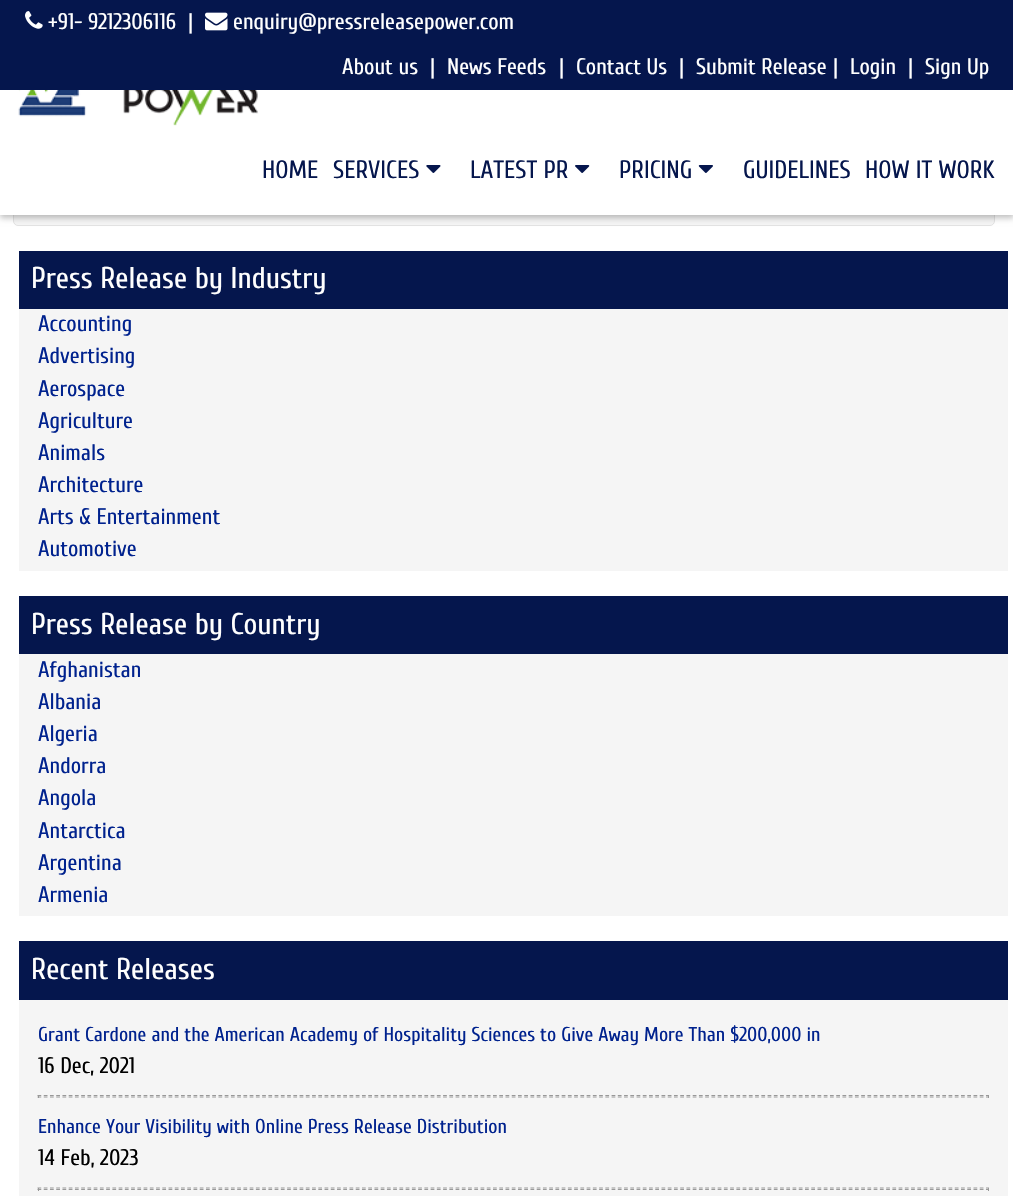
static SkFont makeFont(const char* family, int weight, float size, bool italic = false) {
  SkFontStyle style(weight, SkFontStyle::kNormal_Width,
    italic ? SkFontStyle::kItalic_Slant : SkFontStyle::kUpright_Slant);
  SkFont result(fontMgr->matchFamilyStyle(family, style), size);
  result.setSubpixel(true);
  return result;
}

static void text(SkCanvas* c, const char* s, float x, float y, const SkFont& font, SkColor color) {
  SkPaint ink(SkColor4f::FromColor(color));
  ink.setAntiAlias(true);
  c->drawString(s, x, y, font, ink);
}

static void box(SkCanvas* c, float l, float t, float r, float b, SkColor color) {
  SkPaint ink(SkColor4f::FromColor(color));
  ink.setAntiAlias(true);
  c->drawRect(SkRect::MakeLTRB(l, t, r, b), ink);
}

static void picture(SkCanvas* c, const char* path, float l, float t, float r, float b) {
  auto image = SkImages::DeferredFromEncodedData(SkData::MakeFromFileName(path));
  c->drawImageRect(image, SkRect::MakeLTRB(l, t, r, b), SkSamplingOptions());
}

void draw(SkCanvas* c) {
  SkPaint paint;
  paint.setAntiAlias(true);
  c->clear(0xffffffff);
  paint.setColor(0xfff5f5f5);
  c->drawRoundRect(SkRect::MakeLTRB(13.5f, 144.5f, 994.5f, 225.5f), 4.5f, 4.5f, paint);
  paint.setStyle(SkPaint::kStroke_Style);
  paint.setStrokeWidth(1);
  paint.setColor(0xffe3e3e3);
  c->drawRoundRect(SkRect::MakeLTRB(13.5f, 144.5f, 994.5f, 225.5f), 4.5f, 4.5f, paint);
  paint.setStyle(SkPaint::kFill_Style);
  paint.setColor(0x40000000);
  paint.setMaskFilter(SkMaskFilter::MakeBlur(kNormal_SkBlurStyle, 3));
  c->drawRect(SkRect::MakeLTRB(0, 46, 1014, 218), paint);
  paint.setMaskFilter(nullptr);
  box(c, 0, 0, 1013, 90, 0xff05164d);
  picture(c, "img_01.png", 25, 11, 43, 29);
  SkFont face1 = makeFont("Cuprum", 400, 22.5f);
  text(c, "+91- 9212306116", 48, 29, face1, 0xffffffff);
  text(c, "|", 188, 29, face1, 0xffffffff);
  picture(c, "img_02.png", 205, 12, 228, 31);
  text(c, "enquiry@pressreleasepower.com", 233, 29, face1, 0xffffffff);
  text(c, "About us", 342, 74, face1, 0xffffffff);
  text(c, "|", 430, 74, face1, 0xffffffff);
  text(c, "News Feeds", 447, 74, face1, 0xffffffff);
  text(c, "|", 559, 74, face1, 0xffffffff);
  text(c, "Contact Us", 576, 74, face1, 0xffffffff);
  text(c, "|", 679, 74, face1, 0xffffffff);
  text(c, "Submit Release", 696, 74, face1, 0xffffffff);
  text(c, "|", 833, 74, face1, 0xffffffff);
  text(c, "Login", 850, 74, face1, 0xffffffff);
  text(c, "|", 908, 74, face1, 0xffffffff);
  text(c, "Sign Up", 925, 74, face1, 0xffffffff);
  box(c, 0, 90, 1013, 215, 0xffffffff);
  picture(c, "img_03.png", 18, 90, 259, 126);
  SkFont face2 = makeFont("Cuprum", 400, 25);
  text(c, "HOME", 262, 178, face2, 0xff05164d);
  text(c, "SERVICES", 333, 178, face2, 0xff05164d);
  picture(c, "img_04.png", 426, 165, 441, 173);
  text(c, "LATEST PR", 470, 178, face2, 0xff05164d);
  picture(c, "img_05.png", 575, 165, 590, 173);
  text(c, "PRICING", 619, 178, face2, 0xff05164d);
  picture(c, "img_06.png", 698, 165, 713, 173);
  text(c, "GUIDELINES", 743, 178, face2, 0xff05164d);
  text(c, "HOW IT WORK", 865, 178, face2, 0xff05164d);
  box(c, 19, 251, 1008, 309, 0xff05164d);
  SkFont face3 = makeFont("Cuprum", 400, 30);
  text(c, "Press Release by Industry", 31, 288, face3, 0xffffffff);
  box(c, 19, 309, 1008, 571, 0xfff5f5f5);
  text(c, "Accounting", 38, 331, face1, 0xff00228e);
  text(c, "Advertising", 38, 363, face1, 0xff00228e);
  text(c, "Aerospace", 38, 396, face1, 0xff00228e);
  text(c, "Agriculture", 38, 428, face1, 0xff00228e);
  text(c, "Animals", 38, 460, face1, 0xff00228e);
  text(c, "Architecture", 38, 492, face1, 0xff00228e);
  text(c, "Arts & Entertainment", 38, 524, face1, 0xff00228e);
  text(c, "Automotive", 38, 556, face1, 0xff00228e);
  box(c, 19, 596, 1008, 654, 0xff05164d);
  text(c, "Press Release by Country", 31, 634, face3, 0xffffffff);
  box(c, 19, 654, 1008, 916, 0xfff5f5f5);
  text(c, "Afghanistan", 38, 677, face1, 0xff00228e);
  text(c, "Albania", 38, 709, face1, 0xff00228e);
  text(c, "Algeria", 38, 741, face1, 0xff00228e);
  text(c, "Andorra", 38, 773, face1, 0xff00228e);
  text(c, "Angola", 38, 805, face1, 0xff00228e);
  text(c, "Antarctica", 38, 838, face1, 0xff00228e);
  text(c, "Argentina", 38, 870, face1, 0xff00228e);
  text(c, "Armenia", 38, 902, face1, 0xff00228e);
  box(c, 19, 941, 1008, 1000, 0xff05164d);
  text(c, "Recent Releases", 31, 979, face3, 0xffffffff);
  box(c, 19, 1000, 1008, 1196, 0xfff5f5f5);
  SkFont face4 = makeFont("Cuprum", 400, 20);
  text(c, "Grant Cardone and the American Academy of Hospitality Sciences to Give Away More Than $200,000 in", 38, 1041, face4, 0xff00228e);
  text(c, "16 Dec, 2021", 38, 1073, face1, 0xff000000);
  paint.setStyle(SkPaint::kStroke_Style);
  paint.setStrokeWidth(1.2f);
  paint.setColor(0xff989898);
  paint.setPathEffect(SkDashPathEffect::Make({{3.75f, 2.49f}}, 0));
  c->drawPath(SkPathBuilder().moveTo(37.5f, 1095.5f).lineTo(989, 1095.5f).detach(), paint);
  paint.setPathEffect(nullptr);
  box(c, 988, 1095, 989, 1098, 0xff989898);
  paint.setPathEffect(SkDashPathEffect::Make({{3.75f, 2.49f}}, 0));
  c->drawPath(SkPathBuilder().moveTo(37.5f, 1097).lineTo(989, 1097).detach(), paint);
  paint.setPathEffect(nullptr);
  box(c, 38, 1095, 39, 1098, 0xff989898);
  text(c, "Enhance Your Visibility with Online Press Release Distribution", 38, 1133, face4, 0xff00228e);
  text(c, "14 Feb, 2023", 38, 1165, face1, 0xff000000);
  paint.setPathEffect(SkDashPathEffect::Make({{3.75f, 2.49f}}, 0));
  c->drawPath(SkPathBuilder().moveTo(37.5f, 1188).lineTo(989, 1188).detach(), paint);
  paint.setPathEffect(nullptr);
  box(c, 988, 1188, 989, 1191, 0xff989898);
  paint.setPathEffect(SkDashPathEffect::Make({{3.75f, 2.49f}}, 0));
  c->drawPath(SkPathBuilder().moveTo(37.5f, 1189.5f).lineTo(989, 1189.5f).detach(), paint);
  paint.setPathEffect(nullptr);
  box(c, 38, 1188, 39, 1191, 0xff989898);
}
